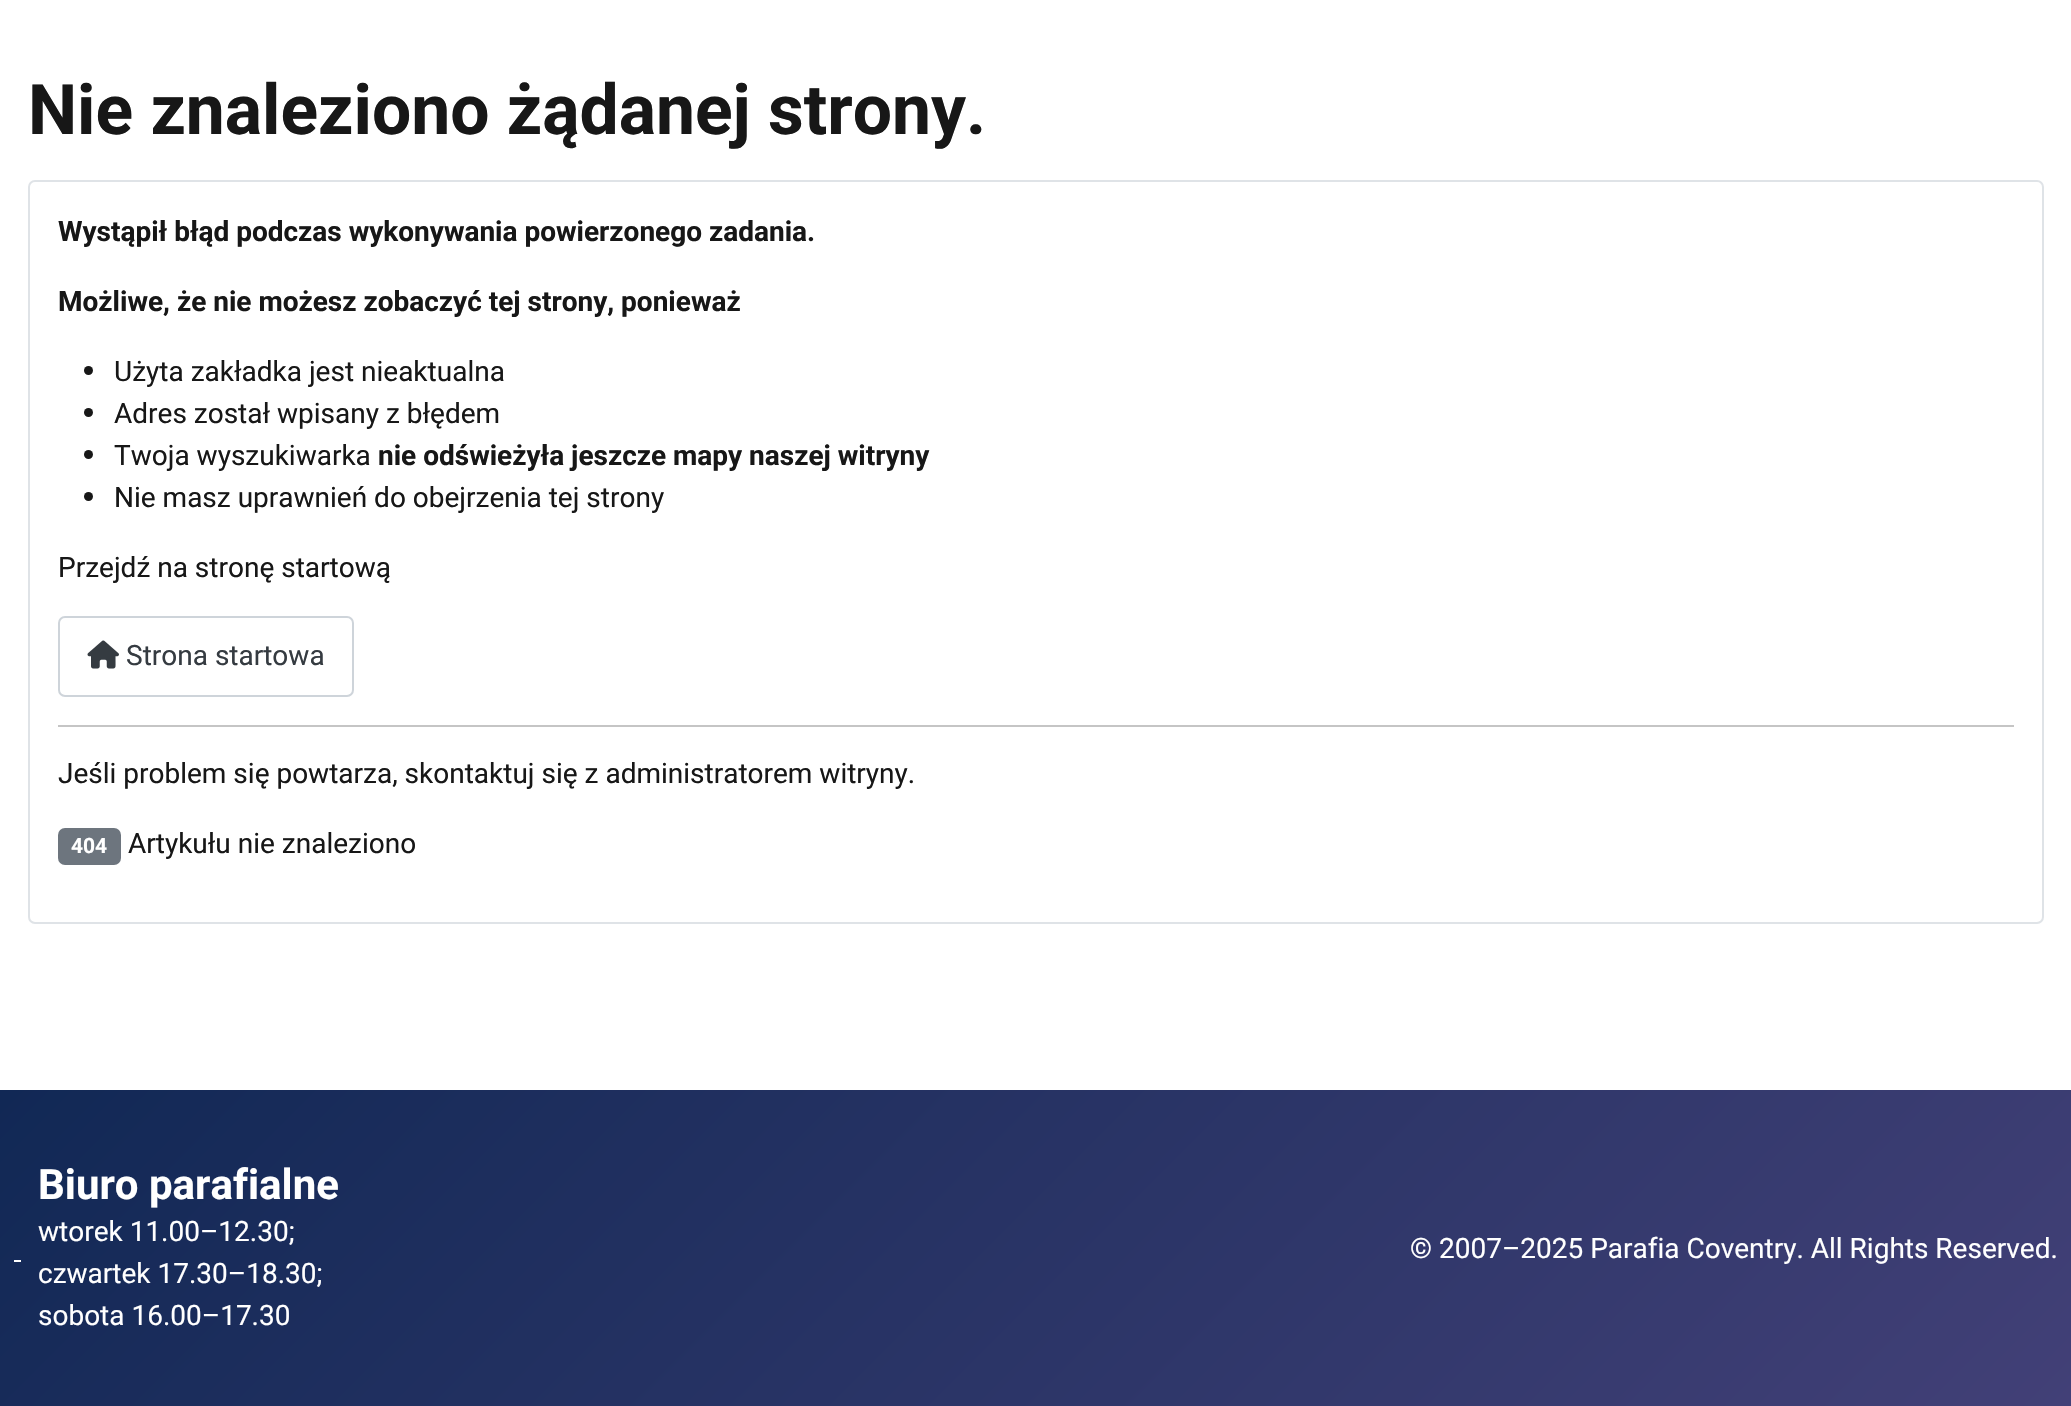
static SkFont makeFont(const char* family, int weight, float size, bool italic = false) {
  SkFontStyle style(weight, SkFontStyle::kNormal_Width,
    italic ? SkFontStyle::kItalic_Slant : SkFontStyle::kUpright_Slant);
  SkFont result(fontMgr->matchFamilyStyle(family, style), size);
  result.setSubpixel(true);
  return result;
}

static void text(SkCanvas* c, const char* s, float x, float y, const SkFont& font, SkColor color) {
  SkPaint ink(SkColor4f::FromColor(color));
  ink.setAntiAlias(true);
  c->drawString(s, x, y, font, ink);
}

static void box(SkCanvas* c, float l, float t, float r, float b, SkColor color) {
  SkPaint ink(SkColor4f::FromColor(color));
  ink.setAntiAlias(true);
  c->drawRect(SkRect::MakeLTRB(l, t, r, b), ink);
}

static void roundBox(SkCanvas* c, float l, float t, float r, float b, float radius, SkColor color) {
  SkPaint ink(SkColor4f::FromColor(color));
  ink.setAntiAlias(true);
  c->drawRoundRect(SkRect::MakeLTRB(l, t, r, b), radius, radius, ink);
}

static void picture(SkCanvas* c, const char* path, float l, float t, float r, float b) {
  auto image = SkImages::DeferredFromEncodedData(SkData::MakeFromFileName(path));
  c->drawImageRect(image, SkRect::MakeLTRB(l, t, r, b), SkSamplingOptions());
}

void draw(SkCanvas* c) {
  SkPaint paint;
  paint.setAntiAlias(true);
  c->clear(0xffffffff);
  SkFont face1 = makeFont("Roboto", 700, 69.6f);
  text(c, "Nie znaleziono żądanej strony.", 28, 134, face1, 0xff171717);
  paint.setStyle(SkPaint::kStroke_Style);
  paint.setStrokeWidth(2);
  paint.setColor(0xffdfe3e7);
  c->drawRoundRect(SkRect::MakeLTRB(29, 181, 2043, 923), 6, 6, paint);
  SkFont face2 = makeFont("Roboto", 700, 28);
  text(c, "Wystąpił błąd podczas wykonywania powierzonego zadania.", 58, 241, face2, 0xff171717);
  text(c, "Możliwe, że nie możesz zobaczyć tej strony, ponieważ", 58, 311, face2, 0xff171717);
  paint.setStyle(SkPaint::kFill_Style);
  paint.setColor(0xff171717);
  c->drawCircle(88.5f, 370.5f, 4.5f, paint);
  SkFont face3 = makeFont("Roboto", 400, 28);
  text(c, "Użyta zakładka jest nieaktualna", 114, 381, face3, 0xff171717);
  c->drawCircle(88.5f, 412.5f, 4.5f, paint);
  text(c, "Adres został wpisany z błędem", 114, 423, face3, 0xff171717);
  c->drawCircle(88.5f, 454.5f, 4.5f, paint);
  text(c, "Twoja wyszukiwarka", 114, 465, face3, 0xff171717);
  text(c, "nie odświeżyła jeszcze mapy naszej witryny", 378, 465, face2, 0xff171717);
  c->drawCircle(88.5f, 496.5f, 4.5f, paint);
  text(c, "Nie masz uprawnień do obejrzenia tej strony", 114, 507, face3, 0xff171717);
  text(c, "Przejdź na stronę startową", 58, 577, face3, 0xff171717);
  paint.setStyle(SkPaint::kStroke_Style);
  paint.setColor(0xffced4da);
  c->drawRoundRect(SkRect::MakeLTRB(59, 617, 353, 696), 6, 6, paint);
  picture(c, "img_01.png", 87, 640, 119, 669);
  text(c, "Strona startowa", 126, 665, face3, 0xff353b41);
  box(c, 58, 725, 2014, 727, 0xffc5c5c5);
  text(c, "Jeśli problem się powtarza, skontaktuj się z administratorem witryny.", 58, 783, face3, 0xff171717);
  roundBox(c, 58, 828, 121, 865, 7, 0xff6d757e);
  SkFont face4 = makeFont("Roboto", 700, 21);
  text(c, "404", 71, 853, face4, 0xffffffff);
  text(c, "Artykułu nie znaleziono", 128, 853, face3, 0xff171717);
  paint.setStyle(SkPaint::kFill_Style);
  {
    const SkColor colors[] = {0xff112855, 0xff424077};
    const float stops[] = {0, 1};
    const SkPoint ends[] = {{439, 651}, {1633, 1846}};
    paint.setShader(SkGradientShader::MakeLinear(ends, colors, stops, 2, SkTileMode::kClamp));
    paint.setAlpha(255);
  }
  c->drawRect(SkRect::MakeLTRB(0, 1090, 2071, 1406), paint);
  box(c, 14, 1260, 21, 1262, 0xffffffff);
  SkFont face5 = makeFont("Roboto", 700, 42);
  text(c, "Biuro parafialne", 38, 1199, face5, 0xffffffff);
  text(c, "wtorek 11.00–12.30;", 38, 1241, face3, 0xffffffff);
  text(c, "czwartek 17.30–18.30;", 38, 1283, face3, 0xffffffff);
  text(c, "sobota 16.00–17.30", 38, 1325, face3, 0xffffffff);
  text(c, "© 2007–2025 Parafia Coventry. All Rights Reserved.", 1410, 1258, face3, 0xffffffff);
}
